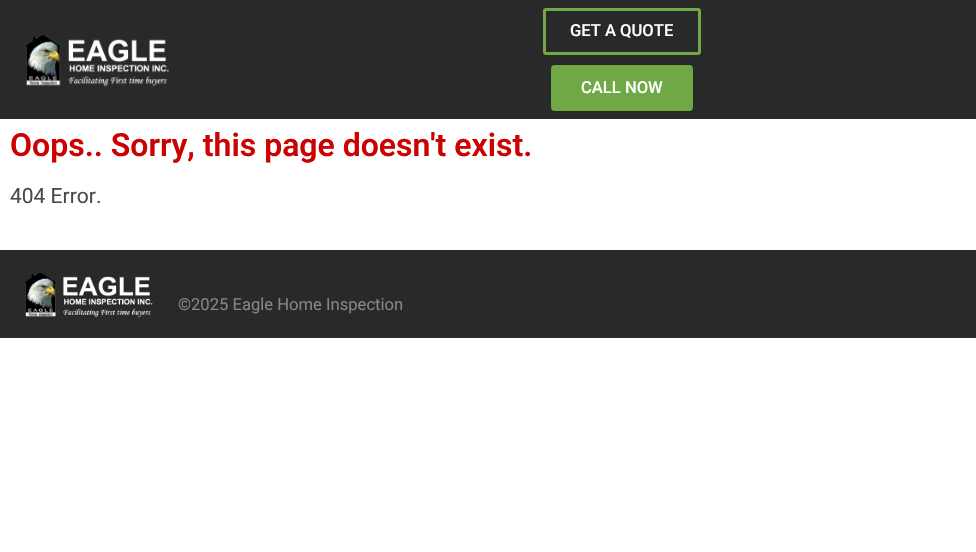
static SkFont makeFont(const char* family, int weight, float size, bool italic = false) {
  SkFontStyle style(weight, SkFontStyle::kNormal_Width,
    italic ? SkFontStyle::kItalic_Slant : SkFontStyle::kUpright_Slant);
  SkFont result(fontMgr->matchFamilyStyle(family, style), size);
  result.setSubpixel(true);
  return result;
}

static void text(SkCanvas* c, const char* s, float x, float y, const SkFont& font, SkColor color) {
  SkPaint ink(SkColor4f::FromColor(color));
  ink.setAntiAlias(true);
  c->drawString(s, x, y, font, ink);
}

static void box(SkCanvas* c, float l, float t, float r, float b, SkColor color) {
  SkPaint ink(SkColor4f::FromColor(color));
  ink.setAntiAlias(true);
  c->drawRect(SkRect::MakeLTRB(l, t, r, b), ink);
}

static void roundBox(SkCanvas* c, float l, float t, float r, float b, float radius, SkColor color) {
  SkPaint ink(SkColor4f::FromColor(color));
  ink.setAntiAlias(true);
  c->drawRoundRect(SkRect::MakeLTRB(l, t, r, b), radius, radius, ink);
}

static void picture(SkCanvas* c, const char* path, float l, float t, float r, float b) {
  auto image = SkImages::DeferredFromEncodedData(SkData::MakeFromFileName(path));
  c->drawImageRect(image, SkRect::MakeLTRB(l, t, r, b), SkSamplingOptions());
}

void draw(SkCanvas* c) {
  SkPaint paint;
  paint.setAntiAlias(true);
  c->clear(0xffffffff);
  box(c, 0, 0, 976, 119, 0xff292929);
  picture(c, "img_01.png", 23, 35, 169, 87);
  paint.setStyle(SkPaint::kStroke_Style);
  paint.setStrokeWidth(3);
  paint.setColor(0xff6fa845);
  c->drawRoundRect(SkRect::MakeLTRB(544.5f, 9.5f, 699.5f, 53.5f), 1.5f, 1.5f, paint);
  SkFont face1 = makeFont("Roboto", 500, 16.6f);
  text(c, "GET A QUOTE", 570, 36, face1, 0xffffffff);
  roundBox(c, 551, 65, 693, 111, 4, 0xff6fa845);
  text(c, "CALL NOW", 581, 93, face1, 0xffffffff);
  SkFont face2 = makeFont("Roboto", 600, 32);
  text(c, "Oops.. Sorry, this page doesn't exist.", 10, 156, face2, 0xffcc0101);
  SkFont face3 = makeFont("Roboto", 400, 21);
  text(c, "404 Error.", 10, 203, face3, 0xff4a4a4a);
  box(c, 0, 250, 976, 338, 0xff292929);
  picture(c, "img_02.png", 23, 272, 153, 318);
  SkFont face4 = makeFont("Roboto", 400, 16.6f);
  text(c, "©2025 Eagle Home Inspection", 178, 310, face4, 0xff858585);
}
